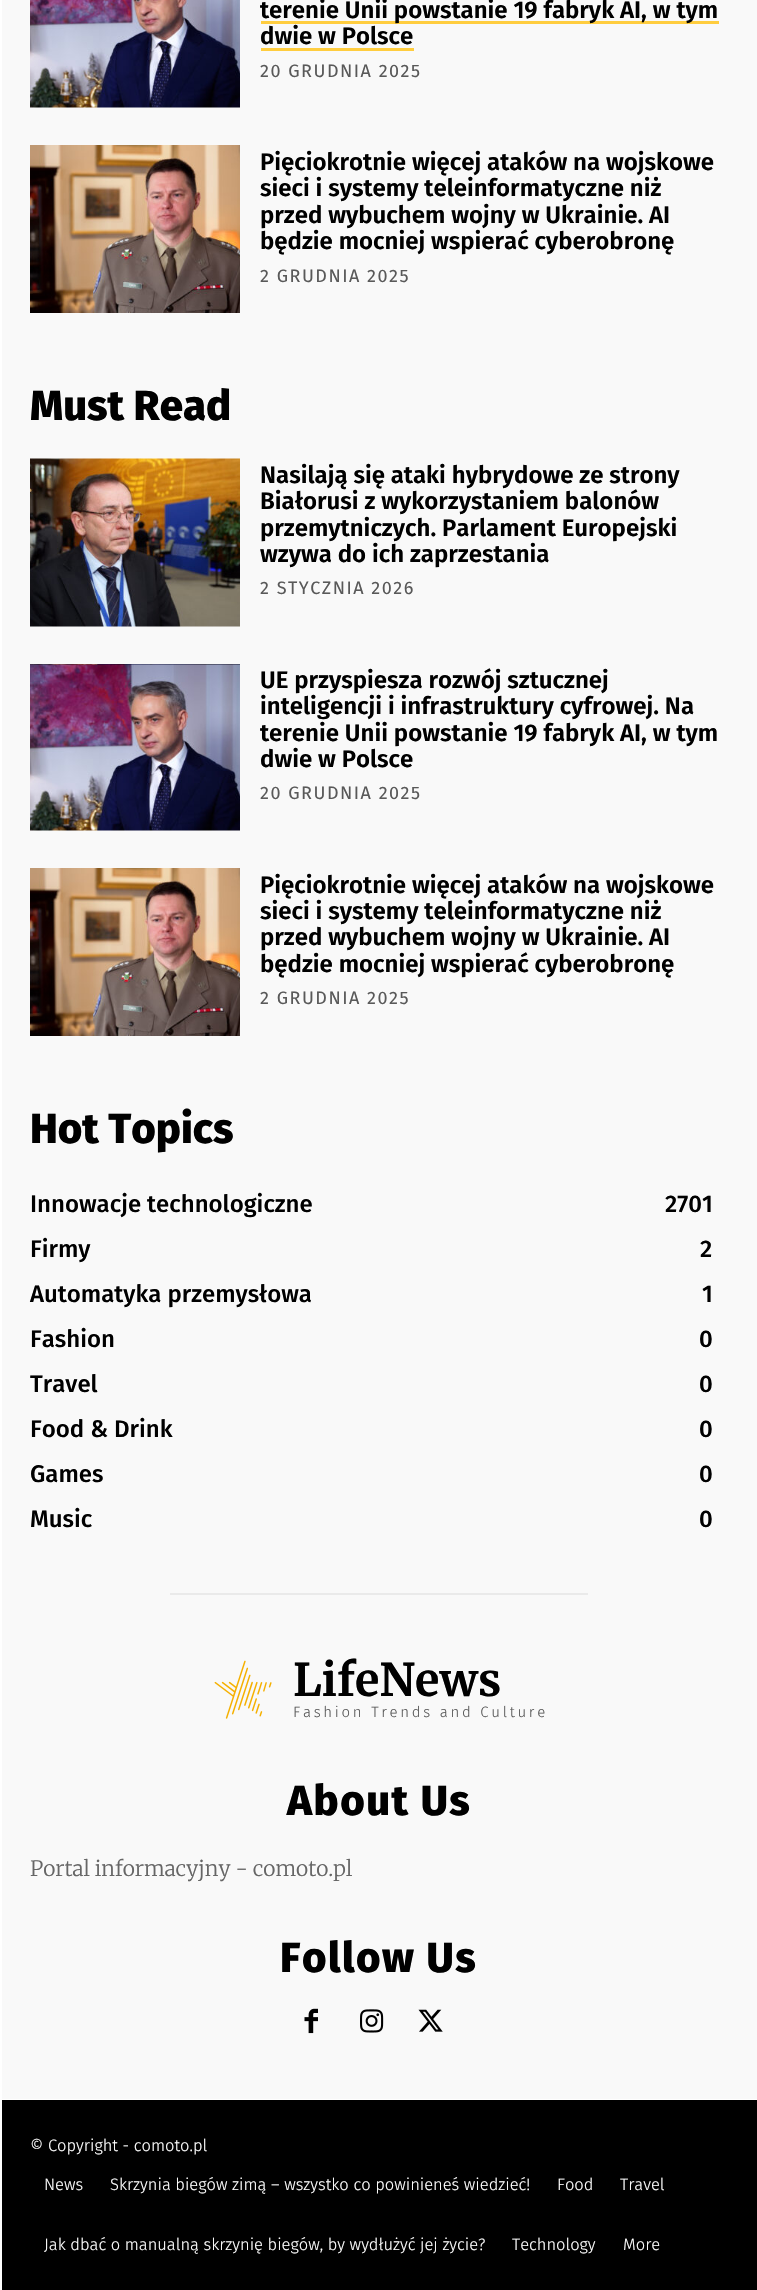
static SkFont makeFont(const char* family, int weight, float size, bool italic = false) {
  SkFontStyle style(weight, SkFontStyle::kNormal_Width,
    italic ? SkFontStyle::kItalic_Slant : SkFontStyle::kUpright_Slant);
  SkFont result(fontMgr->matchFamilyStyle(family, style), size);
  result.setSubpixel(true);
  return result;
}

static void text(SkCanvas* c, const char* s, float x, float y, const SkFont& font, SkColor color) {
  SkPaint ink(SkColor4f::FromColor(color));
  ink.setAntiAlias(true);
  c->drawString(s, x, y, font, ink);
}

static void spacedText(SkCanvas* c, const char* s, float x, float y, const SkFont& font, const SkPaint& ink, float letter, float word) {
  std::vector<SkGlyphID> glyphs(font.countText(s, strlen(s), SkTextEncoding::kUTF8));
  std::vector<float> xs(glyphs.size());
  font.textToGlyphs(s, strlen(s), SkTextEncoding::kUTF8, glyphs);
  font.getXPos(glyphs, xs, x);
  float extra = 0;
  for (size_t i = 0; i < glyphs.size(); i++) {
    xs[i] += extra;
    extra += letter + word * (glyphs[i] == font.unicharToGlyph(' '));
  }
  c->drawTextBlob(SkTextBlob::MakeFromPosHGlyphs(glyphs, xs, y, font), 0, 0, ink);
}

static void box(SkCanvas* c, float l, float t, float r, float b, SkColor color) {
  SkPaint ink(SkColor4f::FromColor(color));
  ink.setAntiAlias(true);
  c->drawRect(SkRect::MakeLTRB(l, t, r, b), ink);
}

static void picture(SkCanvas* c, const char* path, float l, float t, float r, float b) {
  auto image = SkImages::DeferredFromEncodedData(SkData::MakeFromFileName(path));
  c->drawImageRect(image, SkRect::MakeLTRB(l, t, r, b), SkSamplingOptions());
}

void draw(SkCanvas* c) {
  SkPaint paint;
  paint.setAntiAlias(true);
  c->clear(0xffffffff);
  box(c, 2, 0, 757, 2099, 0xfff9f9f9);
  picture(c, "img_01.png", 30, 0, 240, 108);
  box(c, 261, 21, 719, 24, 0xffffcd3f);
  SkFont face1 = makeFont("Fira Sans", 600, 24);
  text(c, "terenie Unii powstanie 19 fabryk AI, w tym", 260, 18, face1, 0xff000000);
  text(c, "dwie w Polsce", 260, 44, face1, 0xff000000);
  box(c, 261, 48, 414, 51, 0xffffcd3f);
  SkFont face2 = makeFont("Fira Sans", 400, 18);
  paint.setColor(0xff595959);
  spacedText(c, "20 GRUDNIA 2025", 260, 77, face2, paint, 1.5f, 0);
  picture(c, "img_02.png", 30, 145, 240, 313);
  text(c, "Pięciokrotnie więcej ataków na wojskowe", 260, 170, face1, 0xff000000);
  text(c, "sieci i systemy teleinformatyczne niż", 260, 196, face1, 0xff000000);
  text(c, "przed wybuchem wojny w Ukrainie. AI", 260, 223, face1, 0xff000000);
  text(c, "będzie mocniej wspierać cyberobronę", 260, 249, face1, 0xff000000);
  spacedText(c, "2 GRUDNIA 2025", 260, 282, face2, paint, 1.5f, 0);
  SkFont face3 = makeFont("Fira Sans", 800, 42);
  text(c, "Must Read", 30, 420, face3, 0xff000000);
  picture(c, "img_03.png", 30, 458, 240, 627);
  text(c, "Nasilają się ataki hybrydowe ze strony", 260, 483, face1, 0xff000000);
  text(c, "Białorusi z wykorzystaniem balonów", 260, 509, face1, 0xff000000);
  text(c, "przemytniczych. Parlament Europejski", 260, 536, face1, 0xff000000);
  text(c, "wzywa do ich zaprzestania", 260, 562, face1, 0xff000000);
  spacedText(c, "2 STYCZNIA 2026", 260, 594, face2, paint, 1.5f, 0);
  picture(c, "img_04.png", 30, 664, 240, 831);
  text(c, "UE przyspiesza rozwój sztucznej", 260, 688, face1, 0xff000000);
  text(c, "inteligencji i infrastruktury cyfrowej. Na", 260, 714, face1, 0xff000000);
  text(c, "terenie Unii powstanie 19 fabryk AI, w tym", 260, 741, face1, 0xff000000);
  text(c, "dwie w Polsce", 260, 767, face1, 0xff000000);
  spacedText(c, "20 GRUDNIA 2025", 260, 799, face2, paint, 1.5f, 0);
  picture(c, "img_02.png", 30, 868, 240, 1036);
  text(c, "Pięciokrotnie więcej ataków na wojskowe", 260, 893, face1, 0xff000000);
  text(c, "sieci i systemy teleinformatyczne niż", 260, 919, face1, 0xff000000);
  text(c, "przed wybuchem wojny w Ukrainie. AI", 260, 945, face1, 0xff000000);
  text(c, "będzie mocniej wspierać cyberobronę", 260, 972, face1, 0xff000000);
  spacedText(c, "2 GRUDNIA 2025", 260, 1004, face2, paint, 1.5f, 0);
  text(c, "Hot Topics", 30, 1143, face3, 0xff000000);
  SkFont face4 = makeFont("Fira Sans", 500, 24);
  text(c, "Innowacje technologiczne", 30, 1212, face4, 0xff000000);
  text(c, "2701", 665, 1212, face4, 0xff000000);
  text(c, "Firmy", 30, 1257, face4, 0xff000000);
  text(c, "2", 700, 1257, face4, 0xff000000);
  text(c, "Automatyka przemysłowa", 30, 1302, face4, 0xff000000);
  text(c, "1", 702, 1302, face4, 0xff000000);
  text(c, "Fashion", 30, 1347, face4, 0xff000000);
  text(c, "0", 699, 1347, face4, 0xff000000);
  text(c, "Travel", 30, 1392, face4, 0xff000000);
  text(c, "0", 699, 1392, face4, 0xff000000);
  text(c, "Food & Drink", 30, 1437, face4, 0xff000000);
  text(c, "0", 699, 1437, face4, 0xff000000);
  text(c, "Games", 30, 1482, face4, 0xff000000);
  text(c, "0", 699, 1482, face4, 0xff000000);
  text(c, "Music", 30, 1527, face4, 0xff000000);
  text(c, "0", 699, 1527, face4, 0xff000000);
  box(c, 170, 1593, 588, 1595, 0xffeaeaea);
  picture(c, "img_05.png", 214, 1660, 272, 1719);
  SkFont face5 = makeFont("Merriweather", 700, 45);
  text(c, "LifeNews", 293, 1696, face5, 0xff000000);
  SkFont face6 = makeFont("Fira Sans", 300, 15);
  spacedText(c, "Fashion Trends and Culture", 293, 1717, face6, paint, 2.7f, 0);
  paint.setColor(0xff000000);
  spacedText(c, "About Us", 287, 1815, face3, paint, 1.5f, 0);
  SkFont face7 = makeFont("Merriweather", 300, 21);
  text(c, "Portal informacyjny - comoto.pl", 30, 1876, face7, 0xff666666);
  spacedText(c, "Follow Us", 280, 1972, face3, paint, 1.5f, 0);
  picture(c, "img_06.png", 304, 2008, 318, 2034);
  picture(c, "img_07.png", 360, 2009, 384, 2033);
  picture(c, "img_08.png", 418, 2009, 443, 2032);
  box(c, 2, 2100, 757, 2290, 0xff000000);
  SkFont face8 = makeFont("Fira Sans", 300, 16.5f);
  text(c, "© Copyright - comoto.pl", 30, 2151, face8, 0xffffffff);
  text(c, "News", 44, 2190, face8, 0xffffffff);
  text(c, "Skrzynia biegów zimą – wszystko co powinieneś wiedzieć!", 110, 2190, face8, 0xffffffff);
  text(c, "Food", 557, 2190, face8, 0xffffffff);
  text(c, "Travel", 620, 2190, face8, 0xffffffff);
  text(c, "Jak dbać o manualną skrzynię biegów, by wydłużyć jej życie?", 44, 2250, face8, 0xffffffff);
  text(c, "Technology", 512, 2250, face8, 0xffffffff);
  text(c, "More", 623, 2250, face8, 0xffffffff);
}
